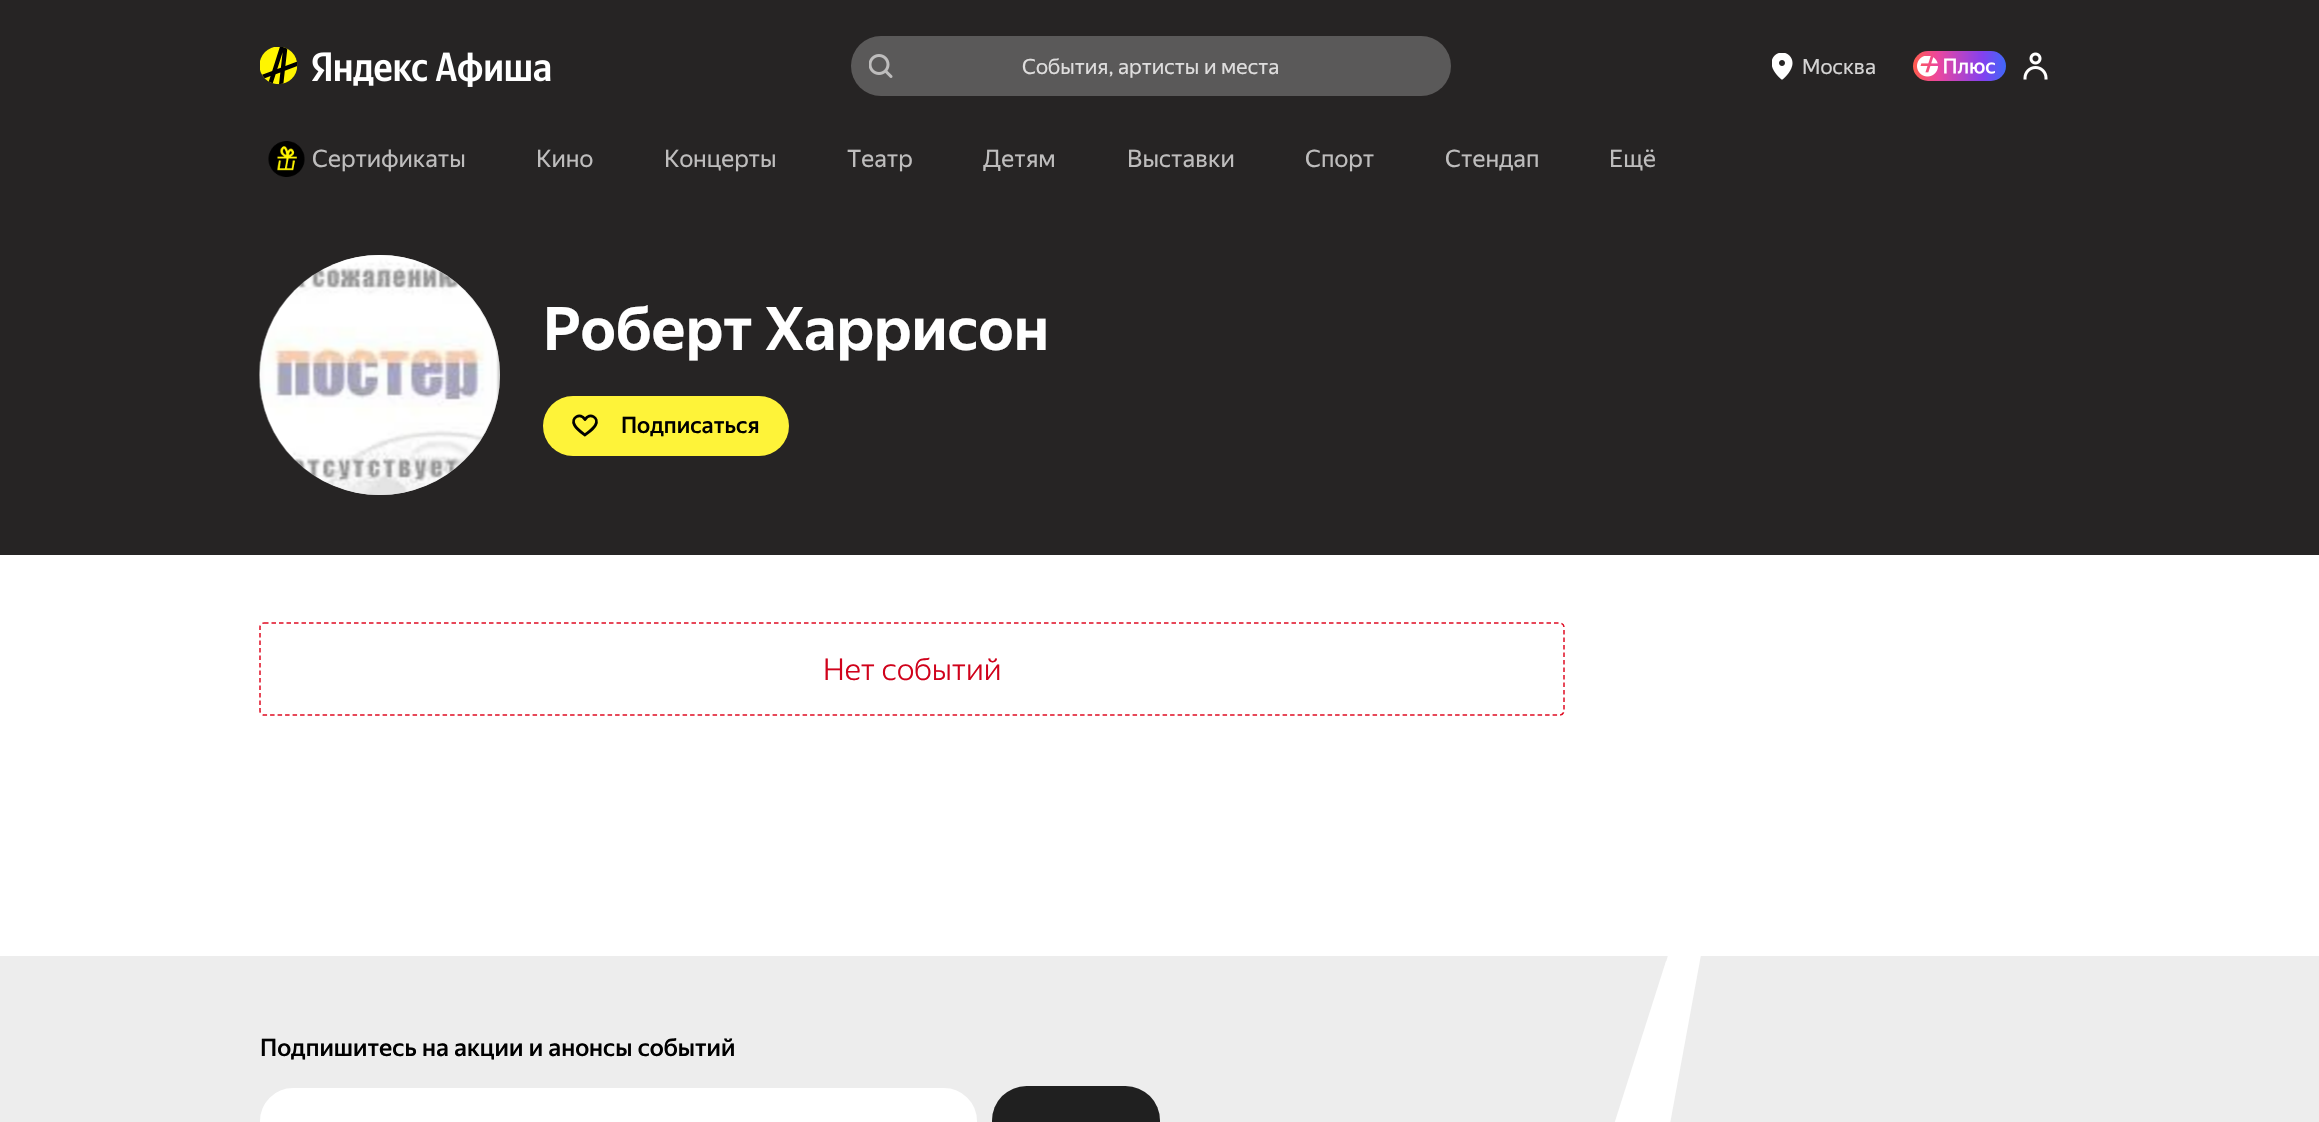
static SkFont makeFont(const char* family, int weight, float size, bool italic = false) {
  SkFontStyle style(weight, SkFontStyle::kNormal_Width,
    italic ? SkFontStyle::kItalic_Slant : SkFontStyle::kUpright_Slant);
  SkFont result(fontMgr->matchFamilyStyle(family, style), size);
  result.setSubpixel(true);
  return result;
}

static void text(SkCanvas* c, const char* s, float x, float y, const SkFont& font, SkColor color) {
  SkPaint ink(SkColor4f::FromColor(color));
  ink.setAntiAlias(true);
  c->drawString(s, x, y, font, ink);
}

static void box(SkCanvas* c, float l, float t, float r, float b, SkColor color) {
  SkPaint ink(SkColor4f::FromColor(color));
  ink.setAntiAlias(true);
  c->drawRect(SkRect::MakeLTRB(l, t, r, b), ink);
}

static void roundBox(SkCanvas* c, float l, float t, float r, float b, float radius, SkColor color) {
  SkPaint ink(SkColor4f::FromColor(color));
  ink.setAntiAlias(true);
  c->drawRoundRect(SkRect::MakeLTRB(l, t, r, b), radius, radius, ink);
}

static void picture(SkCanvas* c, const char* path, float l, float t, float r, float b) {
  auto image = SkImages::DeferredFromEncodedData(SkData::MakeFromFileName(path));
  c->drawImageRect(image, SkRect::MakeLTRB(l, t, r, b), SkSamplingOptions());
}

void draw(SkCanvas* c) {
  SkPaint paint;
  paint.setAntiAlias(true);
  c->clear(0xffffffff);
  box(c, 0, 0, 2319, 555, 0xff262424);
  picture(c, "img_01.png", 260, 47, 298, 85);
  picture(c, "img_02.png", 312, 52, 551, 87);
  picture(c, "img_03.png", 869, 54, 893, 78);
  SkFont face1 = makeFont("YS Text", 400, 21);
  text(c, "События, артисты и места", 1022, 74, face1, 0xffd4d3d3);
  roundBox(c, 851, 36, 1451, 96, 30, 0x3dffffff);
  picture(c, "img_04.png", 1772, 53, 1793, 80);
  text(c, "Москва", 1802, 74, face1, 0xffd4d3d3);
  {
    const SkColor colors[] = {0xffff5c4d, 0xffeb469f, 0xff8341ef, 0xff3f68f9};
    const float stops[] = {0, 0.27f, 0.75f, 1};
    const SkPoint ends[] = {{1913, 66}, {2006, 66}};
    paint.setShader(SkGradientShader::MakeLinear(ends, colors, stops, 4, SkTileMode::kClamp));
    paint.setAlpha(255);
  }
  c->drawRoundRect(SkRect::MakeLTRB(1913, 51, 2006, 81), 15, 15, paint);
  picture(c, "img_05.png", 1917, 56, 1938, 77);
  picture(c, "img_06.png", 1944, 58, 1995, 74);
  picture(c, "img_07.png", 2023, 52, 2048, 80);
  picture(c, "img_08.png", 268, 141, 305, 177);
  SkFont face2 = makeFont("YS Text", 400, 24);
  text(c, "Сертификаты", 312, 167, face2, 0xffbebdbd);
  text(c, "Кино", 536, 167, face2, 0xffbebdbd);
  text(c, "Концерты", 664, 167, face2, 0xffbebdbd);
  text(c, "Театр", 847, 167, face2, 0xffbebdbd);
  text(c, "Детям", 983, 167, face2, 0xffbebdbd);
  text(c, "Выставки", 1127, 167, face2, 0xffbebdbd);
  text(c, "Спорт", 1305, 167, face2, 0xffbebdbd);
  text(c, "Стендап", 1445, 167, face2, 0xffbebdbd);
  text(c, "Ещё", 1609, 167, face2, 0xffbebdbd);
  paint.setShader(nullptr);
  paint.setColor(0xffd8d8d8);
  c->drawCircle(380, 375, 120, paint);
  picture(c, "img_09.png", 259, 255, 500, 495);
  SkFont face3 = makeFont("YS Text", 700, 60);
  text(c, "Роберт Харрисон", 543, 350, face3, 0xffffffff);
  roundBox(c, 543, 396, 789, 456, 30, 0xfffef339);
  paint.setStyle(SkPaint::kStroke_Style);
  paint.setStrokeWidth(2.8f);
  paint.setStrokeCap(SkPaint::kSquare_Cap);
  paint.setStrokeJoin(SkPaint::kRound_Join);
  paint.setColor(0xff000000);
  c->drawPath(SkPathBuilder().moveTo(585, 435).cubicTo(581.5f, 432.5f, 576.5f, 429, 574.5f, 425).cubicTo(570.5f, 417.5f, 580.5f, 412, 585, 419.5f).cubicTo(589.5f, 412, 599.5f, 417.5f, 595.5f, 425).cubicTo(593.5f, 429, 588, 432.5f, 585, 435).close().detach(), paint);
  SkFont face4 = makeFont("YS Text", 500, 22.5f);
  text(c, "Подписаться", 621, 433, face4, 0xff000000);
  paint.setStrokeWidth(1.5f);
  paint.setStrokeCap(SkPaint::kButt_Cap);
  paint.setStrokeJoin(SkPaint::kMiter_Join);
  paint.setColor(0xffdf0b22);
  paint.setPathEffect(SkDashPathEffect::Make({{4.5f, 3}}, 0));
  c->drawPath(SkPathBuilder().moveTo(264, 623).lineTo(1560, 623).cubicTo(1562, 623, 1564, 625, 1564, 627).lineTo(1564, 711).cubicTo(1564, 713, 1562, 715, 1560, 715).lineTo(264, 715).cubicTo(262, 715, 260, 713, 260, 711).lineTo(260, 627).cubicTo(260, 625, 262, 623, 264, 623).close().detach(), paint);
  paint.setPathEffect(nullptr);
  SkFont face5 = makeFont("YS Text", 300, 30);
  text(c, "Нет событий", 823, 680, face5, 0xffd0021b);
  box(c, 0, 956, 2319, 1122, 0xffededed);
  SkFont face6 = makeFont("YS Text", 500, 24);
  text(c, "Подпишитесь на акции и анонсы событий", 260, 1056, face6, 0xff000000);
  paint.setStyle(SkPaint::kFill_Style);
  paint.setColor(0xffffffff);
  c->drawRoundRect(SkRect::MakeLTRB(261.5f, 1089.5f, 975.5f, 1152.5f), 31.5f, 31.5f, paint);
  paint.setStyle(SkPaint::kStroke_Style);
  paint.setStrokeWidth(3);
  c->drawRoundRect(SkRect::MakeLTRB(261.5f, 1089.5f, 975.5f, 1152.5f), 31.5f, 31.5f, paint);
  roundBox(c, 992, 1086, 1160, 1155, 34.5f, 0xff202020);
  c->save();
  c->clipRect(SkRect::MakeLTRB(1331, 956, 1701, 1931));
  paint.setStyle(SkPaint::kFill_Style);
  c->drawPath(SkPathBuilder(SkPathFillType::kEvenOdd).moveTo(1453, 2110).lineTo(1654, 1006).lineTo(1668, 955).lineTo(1701, 955).lineTo(1488, 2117).close().detach(), paint);
  c->restore();
  c->drawPath(SkPathBuilder(SkPathFillType::kEvenOdd).moveTo(1291, 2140).lineTo(1666, 961).lineTo(1699, 961).lineTo(1687, 1017).lineTo(1327, 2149).close().detach(), paint);
}
